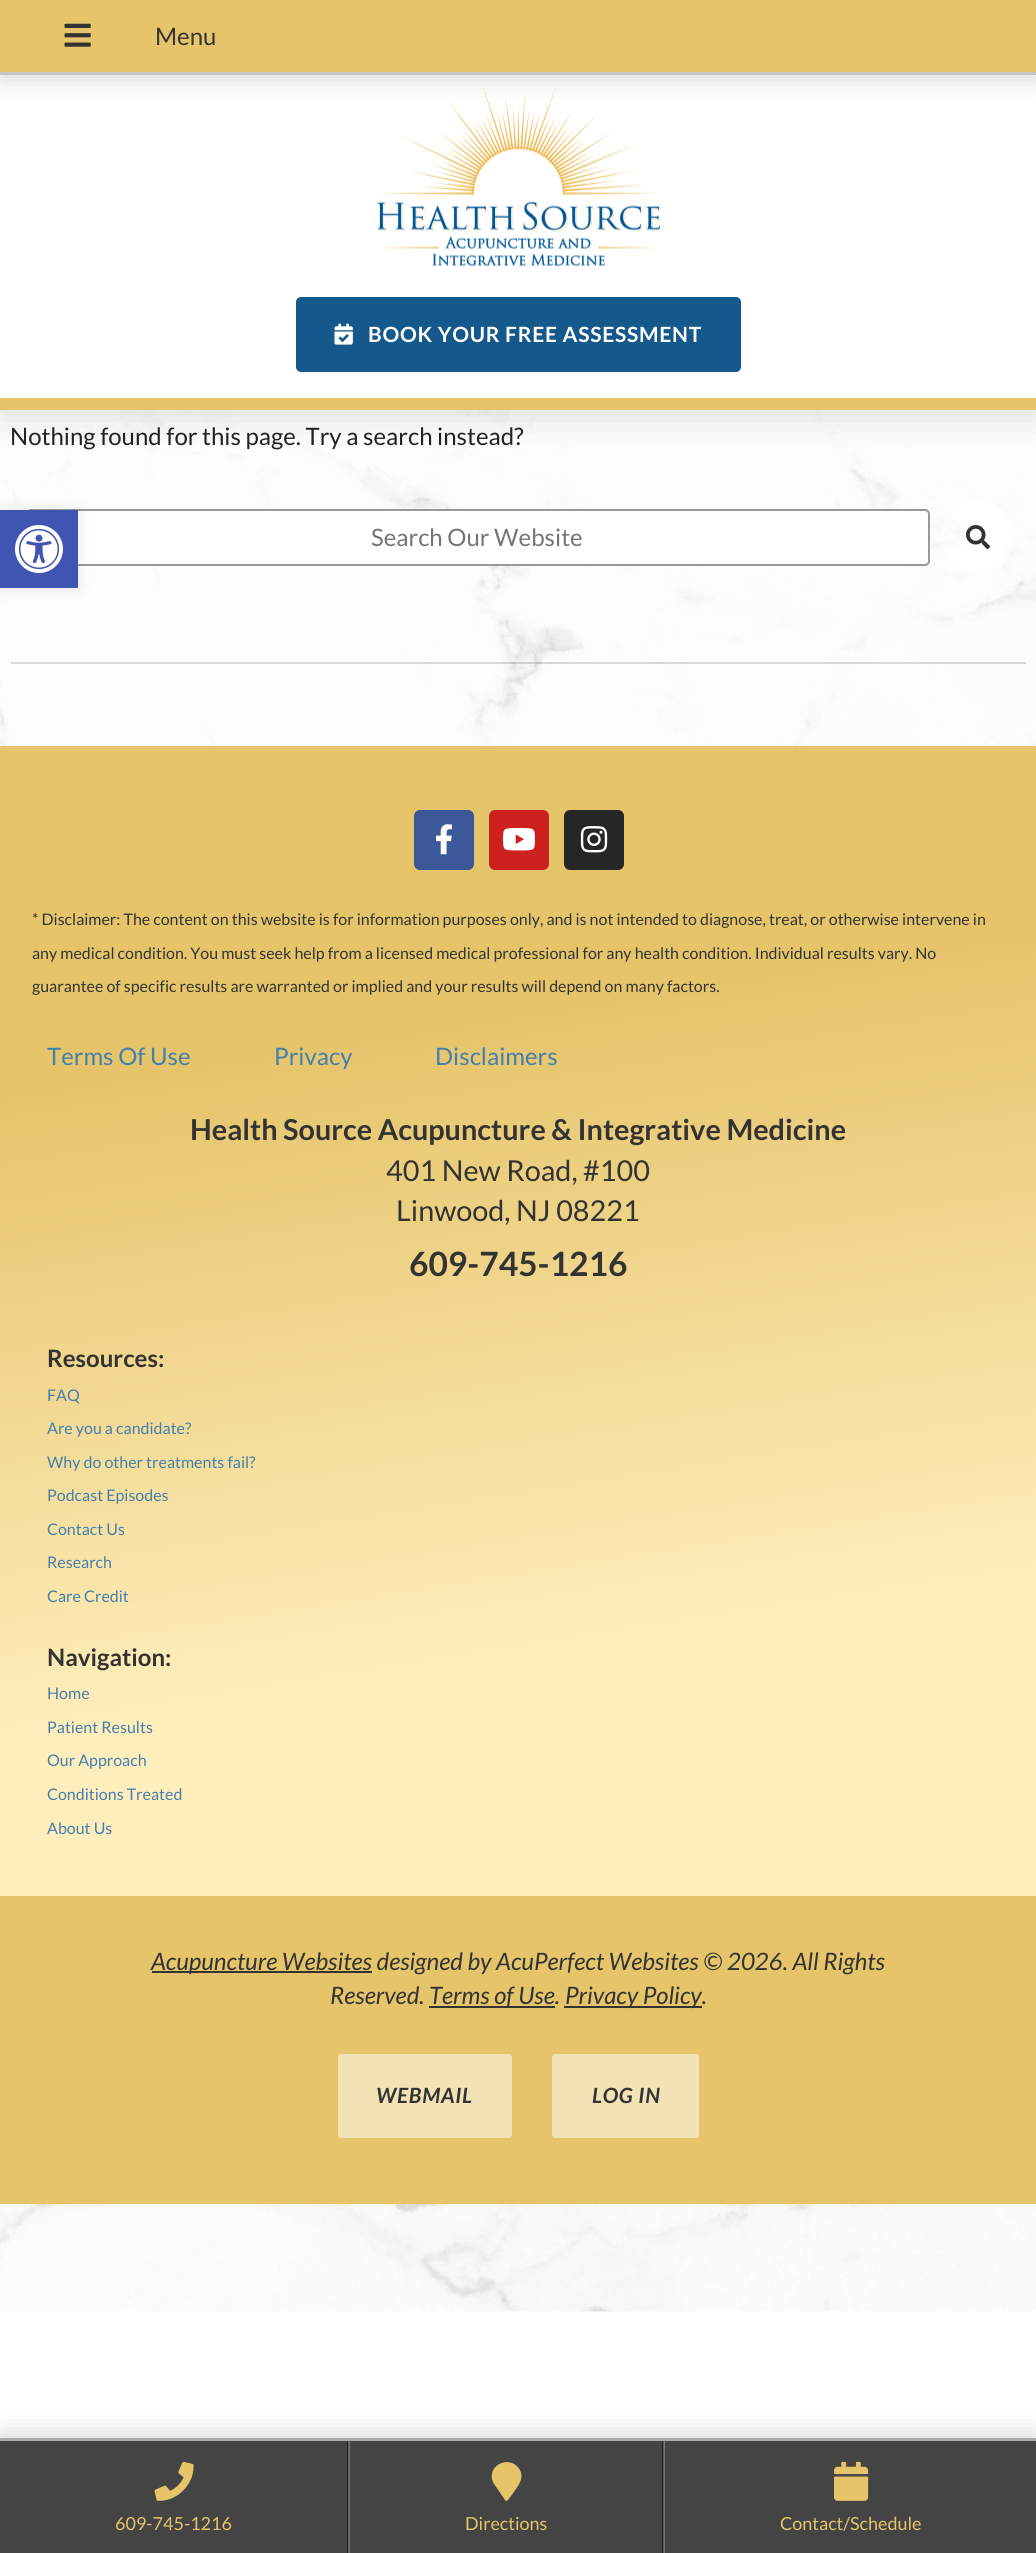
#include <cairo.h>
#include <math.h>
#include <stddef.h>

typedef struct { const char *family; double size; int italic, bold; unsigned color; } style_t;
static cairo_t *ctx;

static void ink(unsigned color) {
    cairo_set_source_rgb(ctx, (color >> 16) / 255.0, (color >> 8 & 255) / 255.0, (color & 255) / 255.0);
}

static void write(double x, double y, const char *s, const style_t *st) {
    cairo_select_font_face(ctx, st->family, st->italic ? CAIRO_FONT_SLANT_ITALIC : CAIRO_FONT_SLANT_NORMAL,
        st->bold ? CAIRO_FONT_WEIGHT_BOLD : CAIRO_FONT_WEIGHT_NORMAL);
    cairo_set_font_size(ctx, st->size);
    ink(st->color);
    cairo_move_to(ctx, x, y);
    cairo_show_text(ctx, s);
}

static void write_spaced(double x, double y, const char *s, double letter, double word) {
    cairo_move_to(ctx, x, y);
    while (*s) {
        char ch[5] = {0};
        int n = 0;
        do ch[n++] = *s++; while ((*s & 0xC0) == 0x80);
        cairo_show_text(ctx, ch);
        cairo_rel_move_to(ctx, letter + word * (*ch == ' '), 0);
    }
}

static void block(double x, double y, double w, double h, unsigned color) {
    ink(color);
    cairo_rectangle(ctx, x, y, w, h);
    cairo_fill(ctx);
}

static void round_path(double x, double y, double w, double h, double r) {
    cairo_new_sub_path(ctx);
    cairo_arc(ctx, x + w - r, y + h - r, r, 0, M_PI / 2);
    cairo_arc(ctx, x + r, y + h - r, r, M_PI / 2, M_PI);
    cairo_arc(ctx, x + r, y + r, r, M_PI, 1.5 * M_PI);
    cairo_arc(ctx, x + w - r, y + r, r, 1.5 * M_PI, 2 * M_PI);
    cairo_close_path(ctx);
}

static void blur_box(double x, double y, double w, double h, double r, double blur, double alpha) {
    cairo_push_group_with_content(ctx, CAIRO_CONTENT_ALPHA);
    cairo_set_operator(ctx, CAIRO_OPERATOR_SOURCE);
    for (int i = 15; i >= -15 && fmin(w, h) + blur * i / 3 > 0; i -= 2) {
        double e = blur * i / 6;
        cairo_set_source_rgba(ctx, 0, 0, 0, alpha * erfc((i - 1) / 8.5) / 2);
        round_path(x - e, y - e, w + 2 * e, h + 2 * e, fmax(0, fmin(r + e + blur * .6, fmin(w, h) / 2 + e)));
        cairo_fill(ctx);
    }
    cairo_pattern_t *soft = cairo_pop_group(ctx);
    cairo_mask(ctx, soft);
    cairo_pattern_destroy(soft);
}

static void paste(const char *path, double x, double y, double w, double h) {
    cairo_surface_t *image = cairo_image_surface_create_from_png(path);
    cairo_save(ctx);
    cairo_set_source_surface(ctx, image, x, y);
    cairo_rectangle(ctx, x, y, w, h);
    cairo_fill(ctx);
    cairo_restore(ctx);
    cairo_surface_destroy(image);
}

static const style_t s1 = {"Lato", 24, 0, 0, 0x333333};
static const style_t s2 = {"Lato", 24, 0, 0, 0x222222};
static const style_t s3 = {"Lato", 24, 0, 0, 0x757575};
static const style_t s4 = {"Lato", 16, 0, 0, 0x333333};
static const style_t s5 = {"Lato", 24, 0, 0, 0x4280af};
static const style_t s6 = {"Lato", 28.8, 0, 1, 0x333333};
static const style_t s7 = {"Lato", 28.8, 0, 0, 0x333333};
static const style_t s8 = {"Lato", 33.5, 0, 1, 0x333333};
static const style_t s9 = {"Lato", 24, 0, 1, 0x333333};
static const style_t s10 = {"Lato", 16, 0, 0, 0x4280af};
static const style_t s11 = {"Lato", 24, 1, 0, 0x333333};
static const style_t s12 = {"Lato", 18, 0, 0, 0xe5c46a};

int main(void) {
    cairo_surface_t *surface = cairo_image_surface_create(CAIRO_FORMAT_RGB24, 1036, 2553);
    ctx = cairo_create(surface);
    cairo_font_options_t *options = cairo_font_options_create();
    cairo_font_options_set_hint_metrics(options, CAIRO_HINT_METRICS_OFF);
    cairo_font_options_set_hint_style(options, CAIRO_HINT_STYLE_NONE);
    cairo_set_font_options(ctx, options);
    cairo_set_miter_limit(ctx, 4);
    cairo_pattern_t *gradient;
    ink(0xffffff);
    cairo_paint(ctx);
    paste("pic1.png", 0, 410, 1036, 1902);
    ink(0x000000);
    blur_box(0, 78, 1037, 335, 0, 19, 0.15);
    block(0, 75, 1036, 323, 0xffffff);
    paste("pic3.png", 376, 85, 286, 181);
    ink(0x000000);
    blur_box(0, 5, 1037, 75, 0, 12, 0.15);
    block(0, 0, 1036, 72, 0xe5c46a);
    block(0, 72, 1036, 3, 0xc6c6c6);
    paste("pic2.png", 64, 23, 27, 24);
    write(155, 45, "Menu", &s1);
    block(0, 398, 1036, 12, 0xe5c46a);
    ink(0x14588c);
    round_path(296, 297, 445, 75, 5);
    cairo_fill(ctx);
    paste("pic4.png", 334, 323, 19, 22);
    cairo_select_font_face(ctx, "Lato", CAIRO_FONT_SLANT_NORMAL, CAIRO_FONT_WEIGHT_BOLD);
    cairo_set_font_size(ctx, 21);
    ink(0xffffff);
    write_spaced(368, 342, "BOOK YOUR FREE ASSESSMENT", 0.75, 0);
    cairo_set_source_rgba(ctx, 0, 0, 0, 0.15);
    cairo_rectangle(ctx, 11, 662, 1015, 2);
    cairo_fill(ctx);
    write(10, 445, "Nothing found for this page. Try a search instead?", &s2);
    ink(0xffffff);
    round_path(27, 510, 902, 55, 4);
    cairo_fill_preserve(ctx);
    ink(0x999999);
    cairo_stroke(ctx);
    write(371, 546, "Search Our Website", &s3);
    cairo_set_source_rgba(ctx, 1, 1, 1, 0.5);
    cairo_new_path(ctx);
    cairo_arc(ctx, 978, 537, 36, 0, 2 * M_PI);
    cairo_fill(ctx);
    paste("pic5.png", 966, 525, 24, 24);
    block(0, 746, 1036, 1458, 0xe5c46a);
    gradient = cairo_pattern_create_linear(419, 703, 618, 1962);
    cairo_pattern_add_color_stop_rgba(gradient, 0.25, 0.898, 0.769, 0.416, 1);
    cairo_pattern_add_color_stop_rgba(gradient, 0.75, 1, 0.929, 0.733, 1);
    cairo_set_source(ctx, gradient);
    cairo_pattern_destroy(gradient);
    cairo_rectangle(ctx, 0, 948, 1036, 948);
    cairo_fill(ctx);
    ink(0x3b5998);
    round_path(414, 810, 60, 60, 6);
    cairo_fill(ctx);
    paste("pic6.png", 435, 824, 18, 31);
    ink(0xcd201f);
    round_path(489, 810, 60, 60, 6);
    cairo_fill(ctx);
    paste("pic7.png", 503, 828, 32, 23);
    ink(0x262626);
    round_path(564, 810, 60, 60, 6);
    cairo_fill(ctx);
    paste("pic8.png", 580, 826, 28, 27);
    write(32, 925, "* Disclaimer: The content on this website is for information purposes only, and is not intended to diagnose, treat, or otherwise intervene in", &s4);
    write(32, 959, "any medical condition. You must seek help from a licensed medical professional for any health condition. Individual results vary. No", &s4);
    write(32, 992, "guarantee of specific results are warranted or implied and your results will depend on many factors.", &s4);
    write(47, 1065, "Terms Of Use", &s5);
    write(274, 1065, "Privacy", &s5);
    write(435, 1065, "Disclaimers", &s5);
    write(190, 1140, "Health Source Acupuncture & Integrative Medicine", &s6);
    write(386, 1181, "401 New Road, #100", &s7);
    write(396, 1221, "Linwood, NJ 08221", &s7);
    write(409, 1276, "609-745-1216", &s8);
    write(47, 1367, "Resources:", &s9);
    write(47, 1401, "FAQ", &s10);
    write(47, 1434, "Are you a candidate?", &s10);
    write(47, 1468, "Why do other treatments fail?", &s10);
    write(47, 1501, "Podcast Episodes", &s10);
    write(47, 1535, "Contact Us", &s10);
    write(47, 1568, "Research", &s10);
    write(47, 1602, "Care Credit", &s10);
    write(47, 1666, "Navigation:", &s9);
    write(47, 1699, "Home", &s10);
    write(47, 1733, "Patient Results", &s10);
    write(47, 1766, "Our Approach", &s10);
    write(47, 1800, "Conditions Treated", &s10);
    write(47, 1834, "About Us", &s10);
    block(152, 1971, 220, 2, 0x333333);
    write(151, 1970, "Acupuncture Websites designed by AcuPerfect Websites © 2026. All Rights", &s11);
    write(330, 2004, "Reserved.", &s11);
    block(429, 2006, 126, 2, 0x333333);
    write(429, 2004, "Terms of Use.", &s11);
    block(564, 2006, 138, 2, 0x333333);
    write(565, 2004, "Privacy Policy.", &s11);
    ink(0xf2e2b5);
    round_path(338, 2054, 174, 84, 3);
    cairo_fill(ctx);
    cairo_select_font_face(ctx, "Lato", CAIRO_FONT_SLANT_ITALIC, CAIRO_FONT_WEIGHT_BOLD);
    cairo_set_font_size(ctx, 21);
    ink(0x333333);
    write_spaced(376, 2103, "WEBMAIL", 0.75, 0);
    ink(0xf2e2b5);
    round_path(552, 2054, 147, 84, 3);
    cairo_fill(ctx);
    ink(0x333333);
    write_spaced(592, 2103, "LOG IN", 0.75, 0);
    ink(0x000000);
    blur_box(0, 510, 78, 78, 0, 7.5, 0.1);
    block(0, 510, 78, 78, 0x4054b2);
    paste("pic9.png", 15, 525, 48, 48);
    ink(0x000000);
    blur_box(0, 2433, 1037, 116, 0, 12, 0.15);
    block(0, 2441, 1036, 112, 0x444444);
    block(664, 2441, 1, 112, 0x767676);
    block(349, 2441, 1, 112, 0x767676);
    block(0, 2438, 1036, 3, 0xaaaaaa);
    block(347, 2441, 1, 112, 0x222222);
    block(348, 2441, 1, 112, 0x5e5e5e);
    paste("pic10.png", 154, 2461, 40, 40);
    write(115, 2530, "609-745-1216", &s12);
    block(662, 2441, 1, 112, 0x222222);
    block(663, 2441, 1, 112, 0x5e5e5e);
    ink(0xe5c46a);
    cairo_new_path(ctx);
    cairo_move_to(ctx, 505, 2500);
    cairo_line_to(ctx, 499, 2491);
    cairo_curve_to(ctx, 496.5, 2487.5, 493, 2483.5, 492, 2479);
    cairo_curve_to(ctx, 489, 2464, 510, 2455.5, 519, 2468.5);
    cairo_curve_to(ctx, 525.5, 2478, 517.5, 2486.5, 512.5, 2494);
    cairo_line_to(ctx, 507.5, 2500.5);
    cairo_curve_to(ctx, 506.5, 2501, 505.5, 2501, 505, 2500);
    cairo_close_path(ctx);
    cairo_fill(ctx);
    write(465, 2530, "Directions", &s12);
    paste("pic11.png", 834, 2461, 35, 40);
    write(780, 2530, "Contact/Schedule", &s12);
    cairo_surface_write_to_png(surface, "screenshot.png");
    cairo_font_options_destroy(options);
    cairo_destroy(ctx);
    cairo_surface_destroy(surface);
    return 0;
}
